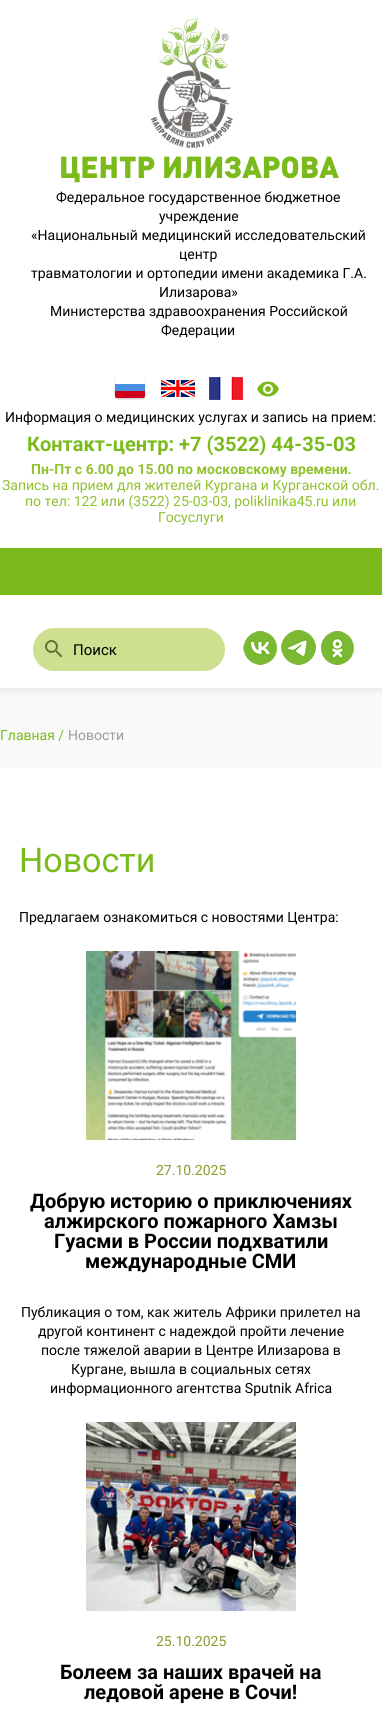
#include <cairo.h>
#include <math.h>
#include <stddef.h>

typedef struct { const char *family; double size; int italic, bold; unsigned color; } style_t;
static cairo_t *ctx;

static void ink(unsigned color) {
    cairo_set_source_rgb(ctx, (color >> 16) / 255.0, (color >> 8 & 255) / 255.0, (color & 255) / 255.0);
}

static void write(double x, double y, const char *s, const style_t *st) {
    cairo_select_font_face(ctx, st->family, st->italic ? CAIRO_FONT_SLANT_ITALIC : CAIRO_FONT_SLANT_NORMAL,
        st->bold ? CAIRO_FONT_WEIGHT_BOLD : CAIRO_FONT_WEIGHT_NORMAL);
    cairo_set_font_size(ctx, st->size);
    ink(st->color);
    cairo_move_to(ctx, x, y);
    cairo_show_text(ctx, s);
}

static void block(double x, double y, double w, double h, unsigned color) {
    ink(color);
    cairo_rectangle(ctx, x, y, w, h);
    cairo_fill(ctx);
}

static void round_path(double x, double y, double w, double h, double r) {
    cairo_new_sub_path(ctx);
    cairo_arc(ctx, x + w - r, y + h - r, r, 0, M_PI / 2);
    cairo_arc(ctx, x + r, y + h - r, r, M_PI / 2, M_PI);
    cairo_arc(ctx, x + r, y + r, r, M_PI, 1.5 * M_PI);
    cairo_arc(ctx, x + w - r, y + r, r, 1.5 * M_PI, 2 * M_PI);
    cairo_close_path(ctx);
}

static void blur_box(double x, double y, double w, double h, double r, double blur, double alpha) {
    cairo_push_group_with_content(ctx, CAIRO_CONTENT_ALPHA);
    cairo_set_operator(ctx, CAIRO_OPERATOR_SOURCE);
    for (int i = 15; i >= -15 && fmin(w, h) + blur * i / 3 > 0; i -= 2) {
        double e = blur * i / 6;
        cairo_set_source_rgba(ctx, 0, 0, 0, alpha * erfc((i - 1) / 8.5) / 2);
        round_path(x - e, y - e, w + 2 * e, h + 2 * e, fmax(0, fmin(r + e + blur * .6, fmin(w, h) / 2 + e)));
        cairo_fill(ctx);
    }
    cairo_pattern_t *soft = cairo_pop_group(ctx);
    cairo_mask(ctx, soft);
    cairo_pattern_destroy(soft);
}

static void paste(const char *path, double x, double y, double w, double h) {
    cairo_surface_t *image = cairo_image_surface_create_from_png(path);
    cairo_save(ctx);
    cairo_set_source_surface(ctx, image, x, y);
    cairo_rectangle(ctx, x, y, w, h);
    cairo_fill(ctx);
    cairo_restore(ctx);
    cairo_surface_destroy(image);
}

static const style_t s1 = {"DIN Black", 30, 0, 0, 0x7abb1b};
static const style_t s2 = {"Roboto", 14, 0, 0, 0x000000};
static const style_t s3 = {"Roboto", 20, 0, 1, 0x7abb1b};
static const style_t s4 = {"Roboto", 14, 0, 1, 0x90c12e};
static const style_t s5 = {"Roboto", 14, 0, 0, 0x90c12e};
static const style_t s6 = {"Roboto", 15, 0, 0, 0x000000};
static const style_t s7 = {"Roboto", 14, 0, 0, 0x7abb1b};
static const style_t s8 = {"Roboto", 14, 0, 0, 0x9b9b9b};
static const style_t s9 = {"Roboto", 34, 0, 0, 0x7abb1b};
static const style_t s10 = {"Roboto", 14, 0, 0, 0x84a02b};
static const style_t s11 = {"Roboto", 20, 0, 1, 0x000000};

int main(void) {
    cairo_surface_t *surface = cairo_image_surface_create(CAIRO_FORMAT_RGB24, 382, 1722);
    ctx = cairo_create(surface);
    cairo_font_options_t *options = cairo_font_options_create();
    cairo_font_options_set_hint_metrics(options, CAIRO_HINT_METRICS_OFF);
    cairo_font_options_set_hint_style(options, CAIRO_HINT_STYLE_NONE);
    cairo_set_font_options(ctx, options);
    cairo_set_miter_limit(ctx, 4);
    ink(0xf9f9f9);
    cairo_paint(ctx);
    ink(0x513e88);
    blur_box(0, 550, 382, 140, 0, 2, 0.06);
    blur_box(0, 549, 382, 140, 0, 5, 0.08);
    block(0, 0, 382, 548, 0xffffff);
    paste("pic1.png", 150, 17, 83, 131);
    write(59, 178, "ЦЕНТР ИЛИЗАРОВА", &s1);
    write(56, 202, "Федеральное государственное бюджетное", &s2);
    write(159, 221, "учреждение", &s2);
    write(31, 240, "«Национальный медицинский исследовательский", &s2);
    write(179, 259, "центр", &s2);
    write(31, 278, "травматологии и ортопедии имени академика Г.А.", &s2);
    write(159, 297, "Илизарова»", &s2);
    write(50, 316, "Министерства здравоохранения Российской", &s2);
    write(161, 335, "Федерации", &s2);
    paste("pic2.png", 114, 377, 32, 23);
    paste("pic3.png", 161, 380, 34, 17);
    paste("pic4.png", 209, 377, 34, 23);
    paste("pic5.png", 257, 381, 22, 16);
    write(5, 422, "Информация о медицинских услугах и запись на прием:", &s2);
    write(27, 451, "Контакт-центр: +7 (3522) 44-35-03", &s3);
    write(31, 474, "Пн-Пт с 6.00 до 15.00 по московскому времени.", &s4);
    write(2, 490, "Запись на прием для жителей Кургана и Курганской обл.", &s5);
    write(25, 506, "по тел: 122 или (3522) 25-03-03, poliklinika45.ru или", &s5);
    write(158, 522, "Госуслуги", &s5);
    block(0, 595, 382, 93, 0xffffff);
    block(0, 548, 382, 47, 0x7abb1b);
    ink(0xcedf90);
    round_path(33, 628, 192, 43, 21.5);
    cairo_fill(ctx);
    paste("pic6.png", 45, 640, 18, 18);
    write(73, 655, "Поиск", &s6);
    paste("pic7.png", 243, 631, 34, 34);
    paste("pic8.png", 281, 630, 35, 35);
    paste("pic9.png", 320, 631, 34, 34);
    write(0, 740, "Главная /", &s7);
    write(68, 740, "Новости", &s8);
    block(0, 768, 382, 954, 0xffffff);
    write(19, 872, "Новости", &s9);
    write(19, 922, "Предлагаем ознакомиться с новостями Центра:", &s2);
    paste("pic10.png", 86, 951, 210, 189);
    write(156, 1175, "27.10.2025", &s10);
    write(30, 1208, "Добрую историю о приключениях", &s11);
    write(44, 1228, "алжирского пожарного Хамзы", &s11);
    write(54, 1248, "Гуасми в России подхватили", &s11);
    write(85, 1268, "международные СМИ", &s11);
    write(21, 1317, "Публикация о том, как житель Африки прилетел на", &s2);
    write(38, 1336, "другой континент с надеждой пройти лечение", &s2);
    write(41, 1355, "после тяжелой аварии в Центре Илизарова в", &s2);
    write(71, 1374, "Кургане, вышла в социальных сетях", &s2);
    write(50, 1393, "информационного агентства Sputnik Africa", &s2);
    paste("pic11.png", 86, 1422, 210, 189);
    write(156, 1646, "25.10.2025", &s10);
    write(60, 1679, "Болеем за наших врачей на", &s11);
    write(84, 1699, "ледовой арене в Сочи!", &s11);
    cairo_surface_write_to_png(surface, "screenshot.png");
    cairo_font_options_destroy(options);
    cairo_destroy(ctx);
    cairo_surface_destroy(surface);
    return 0;
}
